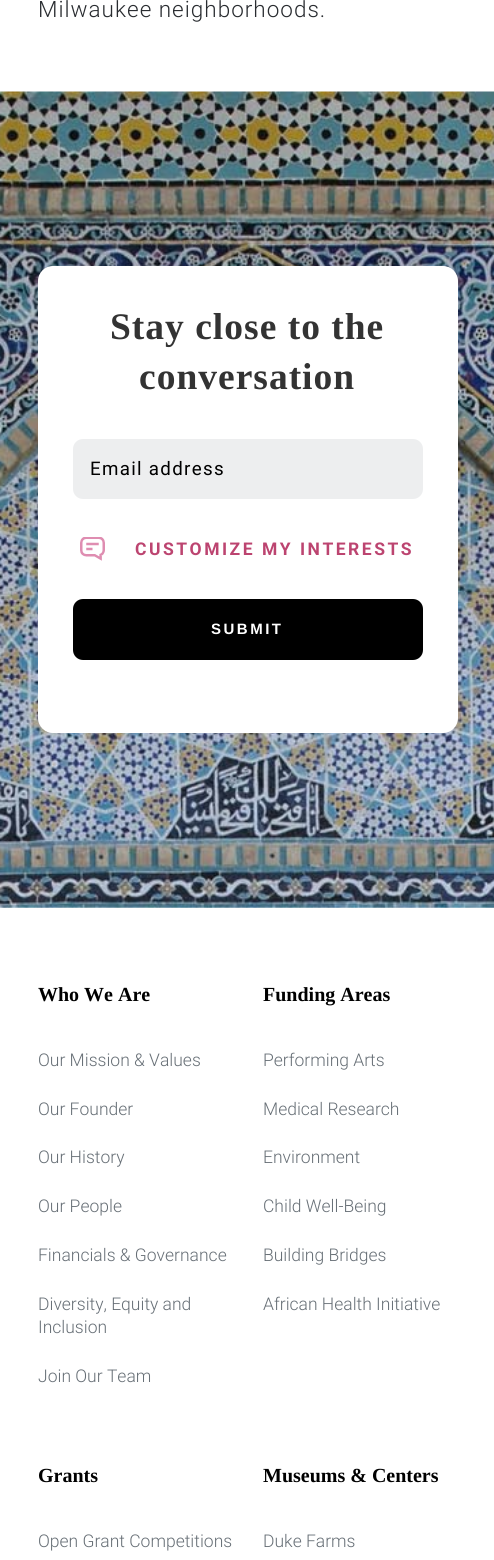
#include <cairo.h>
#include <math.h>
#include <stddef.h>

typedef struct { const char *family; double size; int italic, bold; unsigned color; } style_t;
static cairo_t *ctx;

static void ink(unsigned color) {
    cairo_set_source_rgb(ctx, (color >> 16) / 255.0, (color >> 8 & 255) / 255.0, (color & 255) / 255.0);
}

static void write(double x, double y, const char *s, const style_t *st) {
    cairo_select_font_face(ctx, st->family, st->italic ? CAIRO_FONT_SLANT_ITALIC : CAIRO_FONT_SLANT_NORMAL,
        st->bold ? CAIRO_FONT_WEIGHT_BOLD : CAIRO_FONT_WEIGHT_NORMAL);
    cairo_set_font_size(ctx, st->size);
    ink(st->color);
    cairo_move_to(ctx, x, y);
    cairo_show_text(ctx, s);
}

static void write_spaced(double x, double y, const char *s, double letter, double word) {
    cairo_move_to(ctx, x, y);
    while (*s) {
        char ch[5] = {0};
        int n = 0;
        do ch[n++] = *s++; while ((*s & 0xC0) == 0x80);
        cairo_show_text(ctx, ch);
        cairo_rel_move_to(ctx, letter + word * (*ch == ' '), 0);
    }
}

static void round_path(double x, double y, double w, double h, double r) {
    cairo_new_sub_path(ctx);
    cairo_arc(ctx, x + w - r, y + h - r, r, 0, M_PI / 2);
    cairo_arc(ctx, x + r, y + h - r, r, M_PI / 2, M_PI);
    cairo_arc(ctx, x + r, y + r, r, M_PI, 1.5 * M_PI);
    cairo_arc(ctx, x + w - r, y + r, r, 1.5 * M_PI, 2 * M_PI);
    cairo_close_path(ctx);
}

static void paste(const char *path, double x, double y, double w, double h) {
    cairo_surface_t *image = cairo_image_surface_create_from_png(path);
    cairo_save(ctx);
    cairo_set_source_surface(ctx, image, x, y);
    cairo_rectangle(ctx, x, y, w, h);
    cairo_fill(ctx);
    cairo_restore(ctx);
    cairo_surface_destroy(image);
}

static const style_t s1 = {"Liberation Serif", 20, 0, 1, 0x000000};
static const style_t s2 = {"Roboto Light", 17.5, 0, 0, 0x676f76};

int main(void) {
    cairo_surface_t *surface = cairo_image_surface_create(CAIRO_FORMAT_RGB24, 494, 1560);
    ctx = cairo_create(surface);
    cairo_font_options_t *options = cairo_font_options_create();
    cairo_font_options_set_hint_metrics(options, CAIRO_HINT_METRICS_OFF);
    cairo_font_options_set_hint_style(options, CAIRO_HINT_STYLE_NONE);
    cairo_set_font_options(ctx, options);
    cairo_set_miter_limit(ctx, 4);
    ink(0xffffff);
    cairo_paint(ctx);
    cairo_select_font_face(ctx, "Roboto Light", CAIRO_FONT_SLANT_NORMAL, CAIRO_FONT_WEIGHT_NORMAL);
    cairo_set_font_size(ctx, 22.5);
    ink(0x292c30);
    write_spaced(38, 17, "Milwaukee neighborhoods.", 1, 0);
    paste("pic1.png", 0, 91, 494, 817);
    ink(0xffffff);
    round_path(38, 266, 420, 467, 15);
    cairo_fill(ctx);
    cairo_select_font_face(ctx, "Liberation Serif", CAIRO_FONT_SLANT_NORMAL, CAIRO_FONT_WEIGHT_BOLD);
    cairo_set_font_size(ctx, 37.5);
    ink(0x333333);
    write_spaced(110, 339, "Stay close to the", 1, 0);
    write_spaced(139, 389, "conversation", 1, 0);
    ink(0xedeeef);
    round_path(73, 439, 350, 60, 10);
    cairo_fill(ctx);
    cairo_select_font_face(ctx, "Roboto", CAIRO_FONT_SLANT_NORMAL, CAIRO_FONT_WEIGHT_NORMAL);
    cairo_set_font_size(ctx, 18.75);
    ink(0x000000);
    write_spaced(90, 475, "Email address", 1.3, 0);
    paste("pic2.png", 80, 537, 25, 24);
    cairo_select_font_face(ctx, "Roboto", CAIRO_FONT_SLANT_NORMAL, CAIRO_FONT_WEIGHT_BOLD);
    cairo_set_font_size(ctx, 17.5);
    ink(0xbc4470);
    write_spaced(135, 555, "CUSTOMIZE MY INTERESTS", 2.5, 0);
    ink(0x000000);
    round_path(73, 599, 350, 61, 10);
    cairo_fill(ctx);
    cairo_select_font_face(ctx, "Liberation Sans", CAIRO_FONT_SLANT_NORMAL, CAIRO_FONT_WEIGHT_BOLD);
    cairo_set_font_size(ctx, 15);
    ink(0xffffff);
    write_spaced(211, 634, "SUBMIT", 2.5, 0);
    write(38, 1001, "Who We Are", &s1);
    write(38, 1066, "Our Mission & Values", &s2);
    write(38, 1115, "Our Founder", &s2);
    write(38, 1163, "Our History", &s2);
    write(38, 1212, "Our People", &s2);
    write(38, 1261, "Financials & Governance", &s2);
    write(38, 1310, "Diversity, Equity and", &s2);
    write(38, 1333, "Inclusion", &s2);
    write(38, 1382, "Join Our Team", &s2);
    write(263, 1001, "Funding Areas", &s1);
    write(263, 1066, "Performing Arts", &s2);
    write(263, 1115, "Medical Research", &s2);
    write(263, 1163, "Environment", &s2);
    write(263, 1212, "Child Well-Being", &s2);
    write(263, 1261, "Building Bridges", &s2);
    write(263, 1310, "African Health Initiative", &s2);
    write(38, 1482, "Grants", &s1);
    write(38, 1547, "Open Grant Competitions", &s2);
    write(263, 1482, "Museums & Centers", &s1);
    write(263, 1547, "Duke Farms", &s2);
    cairo_surface_write_to_png(surface, "screenshot.png");
    cairo_font_options_destroy(options);
    cairo_destroy(ctx);
    cairo_surface_destroy(surface);
    return 0;
}
